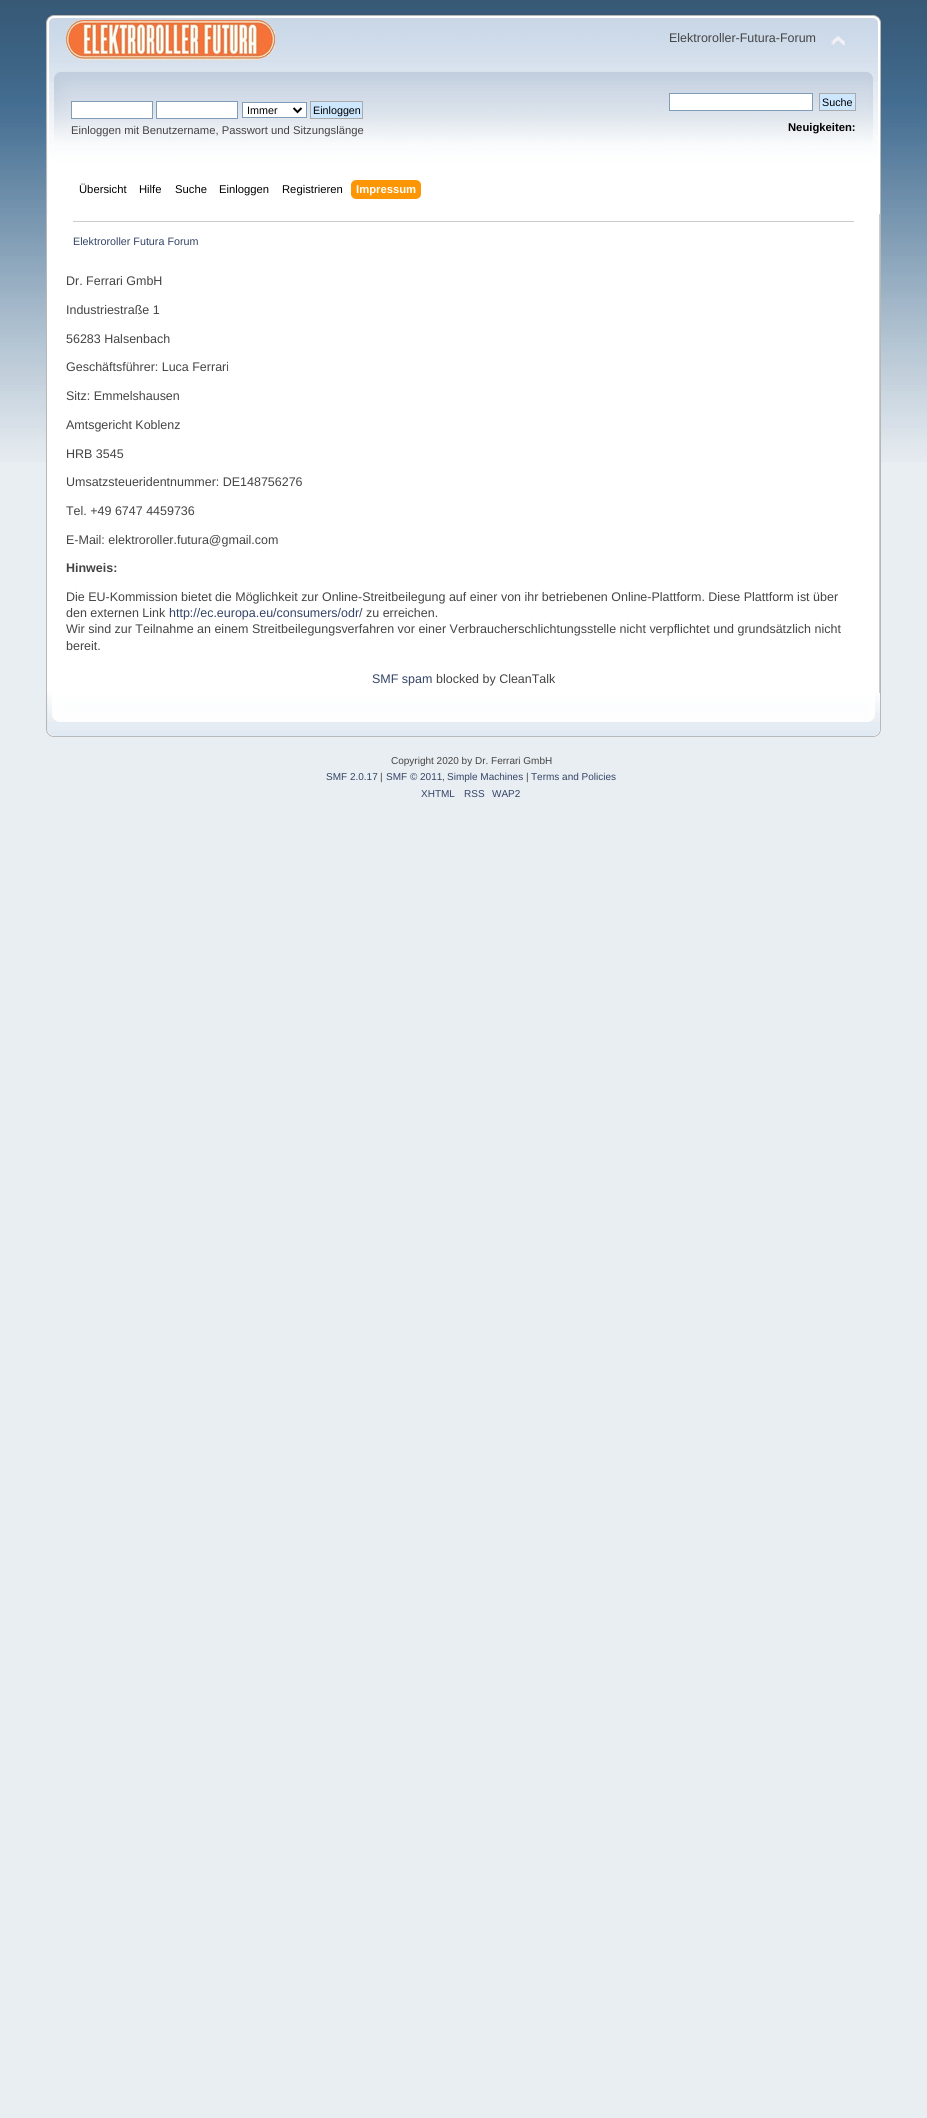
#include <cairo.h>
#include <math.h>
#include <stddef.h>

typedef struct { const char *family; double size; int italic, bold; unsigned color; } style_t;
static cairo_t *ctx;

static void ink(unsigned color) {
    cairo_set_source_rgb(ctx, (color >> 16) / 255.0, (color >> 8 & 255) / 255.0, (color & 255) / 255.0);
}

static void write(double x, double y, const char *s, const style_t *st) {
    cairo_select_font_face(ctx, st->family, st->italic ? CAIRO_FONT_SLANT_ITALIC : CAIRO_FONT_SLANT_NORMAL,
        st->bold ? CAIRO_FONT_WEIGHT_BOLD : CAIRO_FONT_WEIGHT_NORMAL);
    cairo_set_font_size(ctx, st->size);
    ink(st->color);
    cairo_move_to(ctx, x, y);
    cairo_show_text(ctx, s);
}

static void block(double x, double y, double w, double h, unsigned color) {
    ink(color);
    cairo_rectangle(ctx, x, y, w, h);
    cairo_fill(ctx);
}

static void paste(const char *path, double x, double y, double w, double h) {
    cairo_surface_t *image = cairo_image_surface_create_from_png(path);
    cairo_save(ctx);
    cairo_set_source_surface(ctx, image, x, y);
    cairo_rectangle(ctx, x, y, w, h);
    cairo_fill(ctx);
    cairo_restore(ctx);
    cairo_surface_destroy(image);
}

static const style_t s1 = {"Liberation Sans", 12.48, 0, 0, 0x444444};
static const style_t s2 = {"Liberation Sans", 10.75, 0, 0, 0x000000};
static const style_t s3 = {"Liberation Sans", 11.25, 0, 0, 0x444444};
static const style_t s4 = {"Liberation Sans", 11.25, 0, 1, 0x000000};
static const style_t s5 = {"Liberation Sans", 11.25, 0, 0, 0x000000};
static const style_t s6 = {"Liberation Sans", 11.25, 0, 1, 0xffffff};
static const style_t s7 = {"Liberation Sans", 10.75, 0, 0, 0x334466};
static const style_t s8 = {"Liberation Sans", 12.48, 0, 1, 0x444444};
static const style_t s9 = {"Liberation Sans", 12.48, 0, 0, 0x334466};
static const style_t s10 = {"Liberation Sans", 10, 0, 0, 0x444444};
static const style_t s11 = {"Liberation Sans", 10, 0, 0, 0x334466};

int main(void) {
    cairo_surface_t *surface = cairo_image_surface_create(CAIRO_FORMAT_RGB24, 927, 2118);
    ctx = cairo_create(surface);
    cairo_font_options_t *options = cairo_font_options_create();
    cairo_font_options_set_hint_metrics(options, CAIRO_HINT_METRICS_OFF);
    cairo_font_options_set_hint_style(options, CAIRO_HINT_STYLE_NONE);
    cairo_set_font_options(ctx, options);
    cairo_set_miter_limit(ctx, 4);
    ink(0xe9eef2);
    cairo_paint(ctx);
    paste("pic1.png", 0, 0, 927, 462);
    paste("pic2.png", 46, 15, 822, 199);
    paste("pic3.png", 868, 15, 13, 199);
    paste("pic4.png", 66, 20, 209, 40);
    write(669, 42, "Elektroroller-Futura-Forum", &s1);
    paste("pic5.png", 831, 35, 15, 12);
    ink(0xffffff);
    cairo_rectangle(ctx, 71.5, 101.5, 81, 17);
    cairo_fill_preserve(ctx);
    ink(0x7f9db9);
    cairo_set_line_width(ctx, 1);
    cairo_stroke(ctx);
    ink(0xffffff);
    cairo_rectangle(ctx, 156.5, 101.5, 81, 17);
    cairo_fill_preserve(ctx);
    ink(0x7f9db9);
    cairo_stroke(ctx);
    ink(0xffffff);
    cairo_rectangle(ctx, 242.5, 102.5, 64, 15);
    cairo_fill_preserve(ctx);
    ink(0x7f9db9);
    cairo_stroke(ctx);
    cairo_new_path(ctx);
    cairo_move_to(ctx, 293.5, 108);
    cairo_line_to(ctx, 297.5, 112);
    cairo_line_to(ctx, 301.5, 108);
    ink(0x000000);
    cairo_set_line_width(ctx, 2);
    cairo_stroke(ctx);
    write(247, 114, "Immer", &s2);
    ink(0xcde7ff);
    cairo_rectangle(ctx, 310.5, 101.5, 52, 17);
    cairo_fill_preserve(ctx);
    ink(0xaaaaaa);
    cairo_set_line_width(ctx, 1);
    cairo_stroke(ctx);
    write(313, 114, "Einloggen", &s2);
    write(71, 134, "Einloggen mit Benutzername, Passwort und Sitzungslänge", &s3);
    ink(0xffffff);
    cairo_rectangle(ctx, 669.5, 93.5, 143, 17);
    cairo_fill_preserve(ctx);
    ink(0x7f9db9);
    cairo_stroke(ctx);
    ink(0xcde7ff);
    cairo_rectangle(ctx, 819.5, 93.5, 36, 17);
    cairo_fill_preserve(ctx);
    ink(0xaaaaaa);
    cairo_stroke(ctx);
    write(822, 106, "Suche", &s2);
    write(788, 131, "Neuigkeiten:", &s4);
    write(79, 193, "Übersicht", &s5);
    write(139, 193, "Hilfe", &s5);
    write(175, 193, "Suche", &s5);
    write(219, 193, "Einloggen", &s5);
    write(282, 193, "Registrieren", &s5);
    paste("pic6.png", 356, 180, 65, 19);
    paste("pic7.png", 351, 180, 5, 19);
    write(356, 193, "Impressum", &s6);
    block(47, 214, 832, 479, 0xffffff);
    block(46, 214, 1, 479, 0xb7b7b7);
    paste("pic8.png", 879, 214, 2, 479);
    block(73, 221, 781, 1, 0xcccccc);
    write(73, 245, "Elektroroller Futura Forum", &s7);
    write(66, 285, "Dr. Ferrari GmbH", &s1);
    write(66, 314, "Industriestraße 1", &s1);
    write(66, 343, "56283 Halsenbach", &s1);
    write(66, 371, "Geschäftsführer: Luca Ferrari", &s1);
    write(66, 400, "Sitz: Emmelshausen", &s1);
    write(66, 429, "Amtsgericht Koblenz", &s1);
    write(66, 458, "HRB 3545", &s1);
    write(66, 486, "Umsatzsteueridentnummer: DE148756276", &s1);
    write(66, 515, "Tel. +49 6747 4459736", &s1);
    write(66, 544, "E-Mail: elektroroller.futura@gmail.com", &s1);
    write(66, 572, "Hinweis:", &s8);
    write(66, 601, "Die EU-Kommission bietet die Möglichkeit zur Online-Streitbeilegung auf einer von ihr betriebenen Online-Plattform. Diese Plattform ist über", &s1);
    write(66, 617, "den externen Link", &s1);
    write(169, 617, "http://ec.europa.eu/consumers/odr/", &s9);
    write(366, 617, "zu erreichen.", &s1);
    write(66, 633, "Wir sind zur Teilnahme an einem Streitbeilegungsverfahren vor einer Verbraucherschlichtungsstelle nicht verpflichtet und grundsätzlich nicht", &s1);
    write(66, 650, "bereit.", &s1);
    write(372, 683, "SMF spam", &s9);
    write(436, 683, "blocked by CleanTalk", &s1);
    paste("pic9.png", 46, 693, 823, 44);
    paste("pic10.png", 869, 693, 12, 44);
    write(391, 764, "Copyright 2020 by Dr. Ferrari GmbH", &s10);
    write(326, 780, "SMF 2.0.17", &s11);
    write(380, 780, "|", &s10);
    write(386, 780, "SMF © 2011", &s11);
    write(442, 780, ",", &s10);
    write(447, 780, "Simple Machines", &s11);
    write(526, 780, "|", &s10);
    write(531, 780, "Terms and Policies", &s11);
    write(421, 797, "XHTML", &s11);
    write(464, 797, "RSS", &s11);
    write(492, 797, "WAP2", &s11);
    cairo_surface_write_to_png(surface, "screenshot.png");
    cairo_font_options_destroy(options);
    cairo_destroy(ctx);
    cairo_surface_destroy(surface);
    return 0;
}
